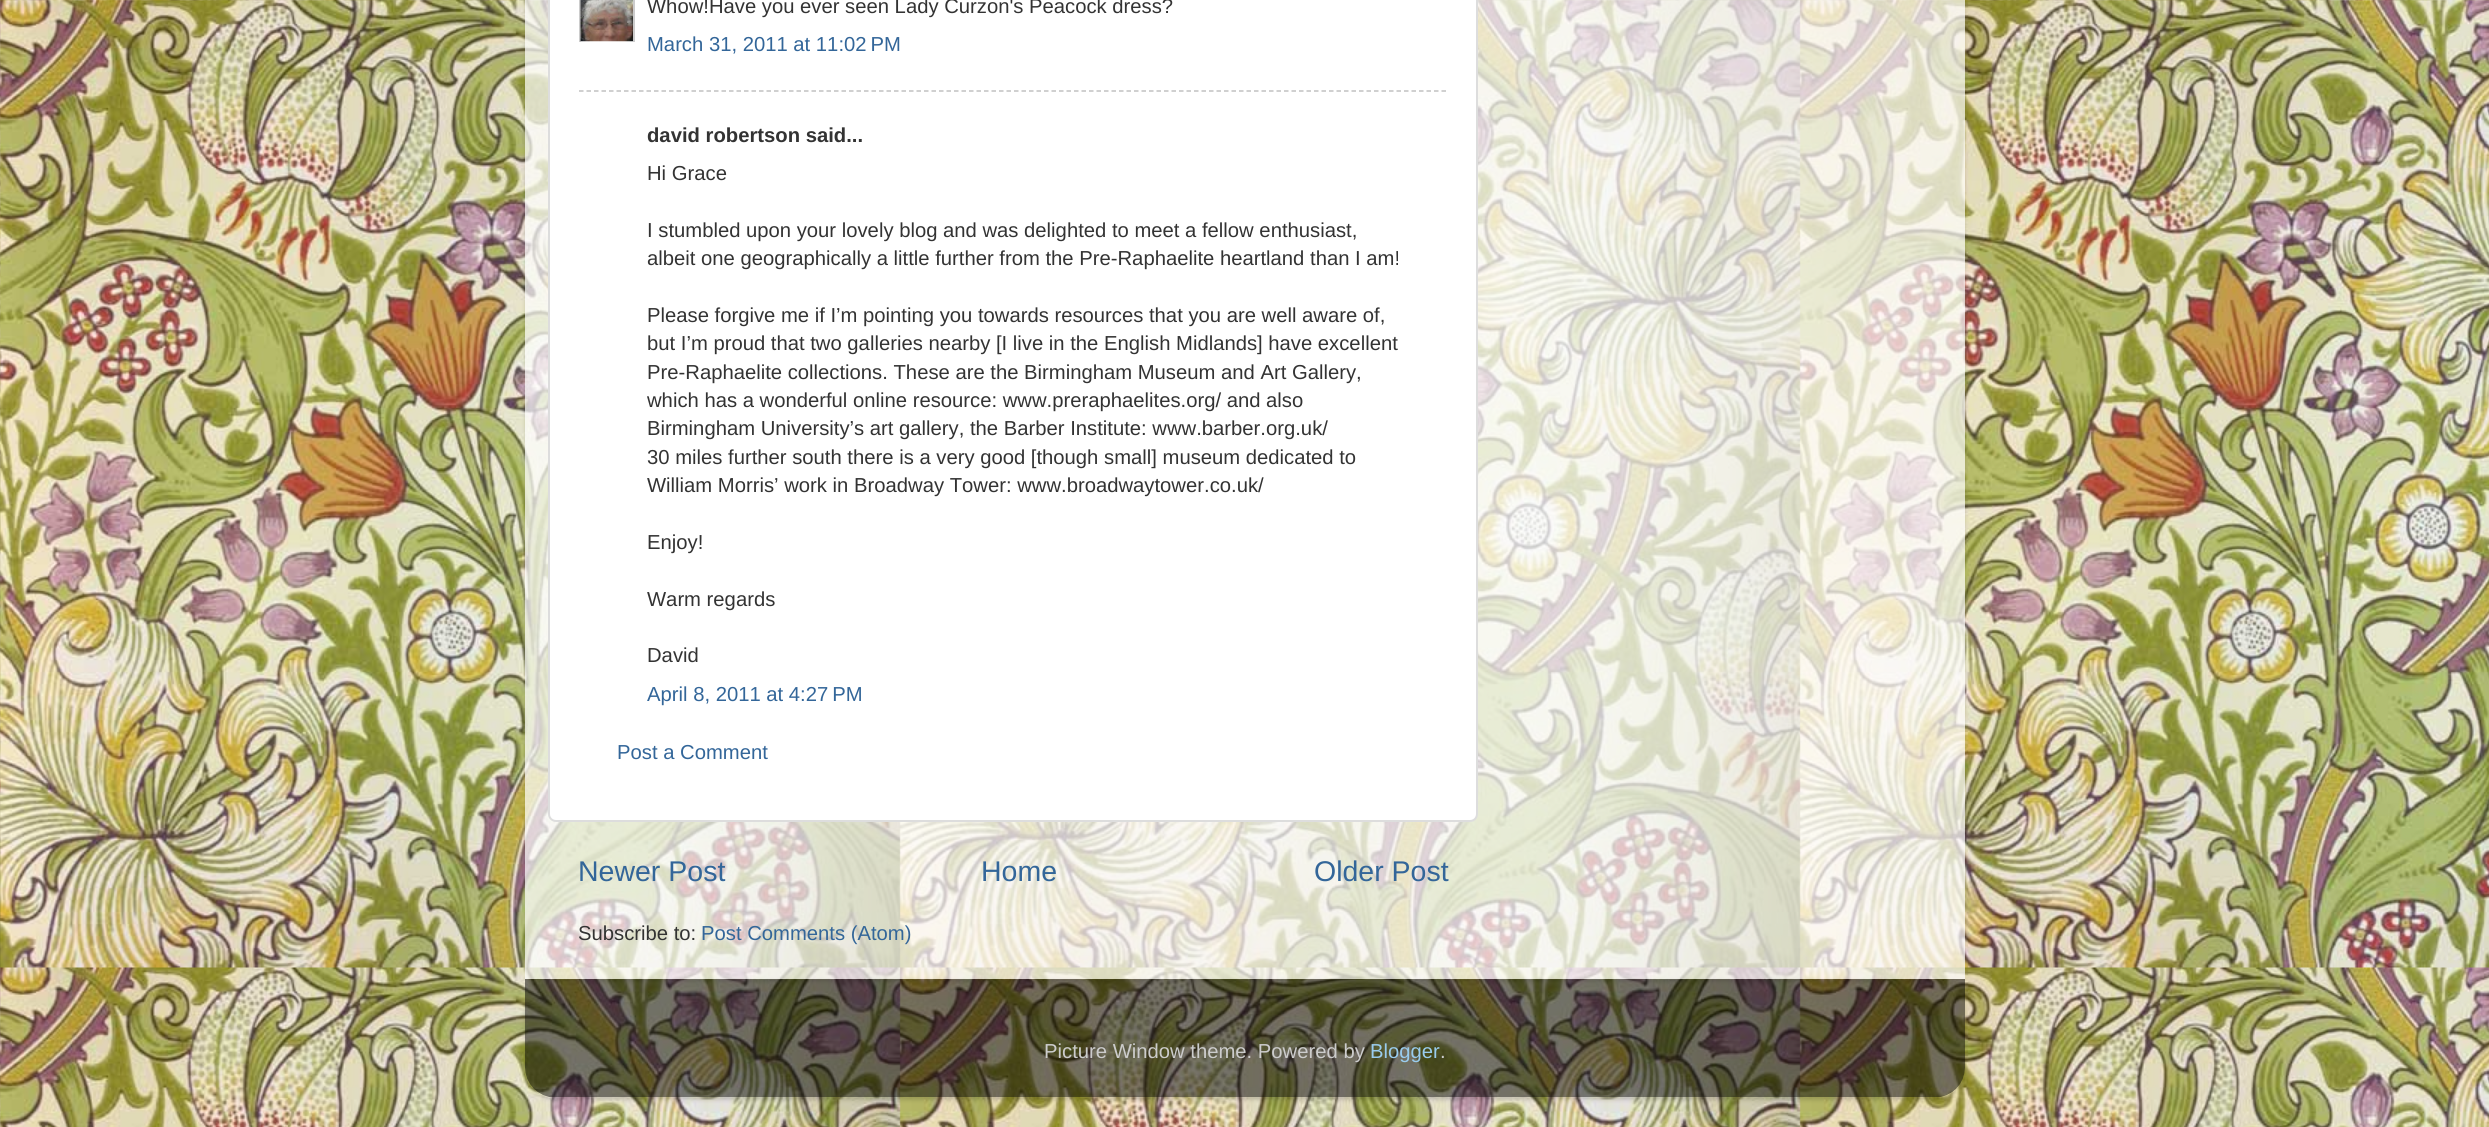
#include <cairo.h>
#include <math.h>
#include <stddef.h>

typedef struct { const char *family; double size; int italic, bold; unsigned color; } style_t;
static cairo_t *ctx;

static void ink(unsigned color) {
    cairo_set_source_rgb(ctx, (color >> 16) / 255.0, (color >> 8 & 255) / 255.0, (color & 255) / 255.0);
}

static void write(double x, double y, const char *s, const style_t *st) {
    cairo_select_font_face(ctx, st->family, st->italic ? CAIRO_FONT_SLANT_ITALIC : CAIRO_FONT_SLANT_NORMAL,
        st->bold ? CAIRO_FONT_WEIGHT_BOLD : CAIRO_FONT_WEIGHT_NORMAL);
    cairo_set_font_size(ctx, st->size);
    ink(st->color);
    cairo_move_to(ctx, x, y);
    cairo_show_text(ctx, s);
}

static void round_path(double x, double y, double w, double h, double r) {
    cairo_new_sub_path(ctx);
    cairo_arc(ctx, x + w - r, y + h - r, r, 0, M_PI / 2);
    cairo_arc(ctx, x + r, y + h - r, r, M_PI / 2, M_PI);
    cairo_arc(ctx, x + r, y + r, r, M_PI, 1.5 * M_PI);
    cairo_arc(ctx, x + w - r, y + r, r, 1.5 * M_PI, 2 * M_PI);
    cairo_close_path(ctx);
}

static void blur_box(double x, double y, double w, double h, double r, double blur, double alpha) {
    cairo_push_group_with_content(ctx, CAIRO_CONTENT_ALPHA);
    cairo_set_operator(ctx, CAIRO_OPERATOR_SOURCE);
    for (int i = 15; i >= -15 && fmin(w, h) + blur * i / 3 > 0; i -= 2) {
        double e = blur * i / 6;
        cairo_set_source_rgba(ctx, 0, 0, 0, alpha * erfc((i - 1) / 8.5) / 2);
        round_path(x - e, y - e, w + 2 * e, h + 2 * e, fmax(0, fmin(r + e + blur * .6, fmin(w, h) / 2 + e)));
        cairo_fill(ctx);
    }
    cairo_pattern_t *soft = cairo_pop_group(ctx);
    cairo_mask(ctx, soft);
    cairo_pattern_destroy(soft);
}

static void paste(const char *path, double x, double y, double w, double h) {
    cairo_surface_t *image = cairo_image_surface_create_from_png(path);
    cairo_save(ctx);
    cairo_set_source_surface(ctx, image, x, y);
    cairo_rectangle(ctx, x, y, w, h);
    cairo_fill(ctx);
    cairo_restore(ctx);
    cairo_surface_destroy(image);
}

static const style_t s1 = {"Liberation Sans", 20.25, 0, 0, 0x333333};
static const style_t s2 = {"Liberation Sans", 20.25, 0, 0, 0x336699};
static const style_t s3 = {"Liberation Sans", 20.25, 0, 1, 0x333333};
static const style_t s4 = {"Liberation Sans", 28.5, 0, 0, 0x336699};
static const style_t s5 = {"Liberation Sans", 20.25, 0, 0, 0xcccccc};
static const style_t s6 = {"Liberation Sans", 20.25, 0, 0, 0x99ccee};

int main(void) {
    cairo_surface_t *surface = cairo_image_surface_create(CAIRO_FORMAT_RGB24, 2489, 1127);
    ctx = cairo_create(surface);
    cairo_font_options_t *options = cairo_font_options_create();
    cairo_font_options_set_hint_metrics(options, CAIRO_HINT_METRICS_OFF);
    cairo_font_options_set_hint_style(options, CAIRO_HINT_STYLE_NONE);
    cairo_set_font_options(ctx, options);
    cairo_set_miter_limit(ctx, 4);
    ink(0xffffff);
    cairo_paint(ctx);
    paste("pic1.png", 0, 0, 2489, 1127);
    cairo_save(ctx);
    cairo_set_fill_rule(ctx, CAIRO_FILL_RULE_EVEN_ODD);
    cairo_new_path(ctx);
    cairo_move_to(ctx, 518, 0);
    cairo_line_to(ctx, 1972, 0);
    cairo_line_to(ctx, 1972, 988);
    cairo_line_to(ctx, 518, 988);
    cairo_close_path(ctx);
    cairo_move_to(ctx, 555, -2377);
    cairo_line_to(ctx, 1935, -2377);
    cairo_curve_to(ctx, 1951.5, -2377, 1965, -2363.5, 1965, -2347);
    cairo_line_to(ctx, 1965, 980);
    cairo_line_to(ctx, 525, 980);
    cairo_line_to(ctx, 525, -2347);
    cairo_curve_to(ctx, 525, -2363.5, 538.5, -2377, 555, -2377);
    cairo_close_path(ctx);
    cairo_clip(ctx);
    ink(0x000000);
    blur_box(525, -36, 1440, 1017, 30, 2, 0.15);
    cairo_restore(ctx);
    cairo_set_source_rgba(ctx, 1, 1, 1, 0.7);
    cairo_rectangle(ctx, 525, 0, 1440, 979);
    cairo_fill(ctx);
    ink(0xffffff);
    round_path(549, -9, 928, 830, 7);
    cairo_fill_preserve(ctx);
    ink(0xdddddd);
    cairo_stroke(ctx);
    cairo_save(ctx);
    cairo_rectangle(ctx, 579, 0, 56, 42);
    cairo_clip(ctx);
    cairo_rectangle(ctx, 580, -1, 54, 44);
    ink(0xcccccc);
    cairo_stroke(ctx);
    cairo_restore(ctx);
    paste("pic2.png", 580, 0, 53, 42);
    write(647, 13, "Whow!Have you ever seen Lady Curzon's Peacock dress?", &s1);
    write(647, 51, "March 31, 2011 at 11:02 PM", &s2);
    cairo_new_path(ctx);
    cairo_move_to(ctx, 579, 91);
    cairo_line_to(ctx, 1446, 91);
    ink(0xc0c0c0);
    cairo_set_line_width(ctx, 1.5);
    cairo_set_dash(ctx, (double[]){4.5, 3}, 2, 0);
    cairo_stroke(ctx);
    write(647, 142, "david robertson said...", &s3);
    write(647, 180, "Hi Grace", &s1);
    write(647, 237, "I stumbled upon your lovely blog and was delighted to meet a fellow enthusiast,", &s1);
    write(647, 265, "albeit one geographically a little further from the Pre-Raphaelite heartland than I am!", &s1);
    write(647, 322, "Please forgive me if I’m pointing you towards resources that you are well aware of,", &s1);
    write(647, 350, "but I’m proud that two galleries nearby [I live in the English Midlands] have excellent", &s1);
    write(647, 379, "Pre-Raphaelite collections. These are the Birmingham Museum and Art Gallery,", &s1);
    write(647, 407, "which has a wonderful online resource: www.preraphaelites.org/ and also", &s1);
    write(647, 435, "Birmingham University’s art gallery, the Barber Institute: www.barber.org.uk/", &s1);
    write(647, 464, "30 miles further south there is a very good [though small] museum dedicated to", &s1);
    write(647, 492, "William Morris’ work in Broadway Tower: www.broadwaytower.co.uk/", &s1);
    write(647, 549, "Enjoy!", &s1);
    write(647, 606, "Warm regards", &s1);
    write(647, 662, "David", &s1);
    write(647, 701, "April 8, 2011 at 4:27 PM", &s2);
    write(617, 759, "Post a Comment", &s2);
    write(578, 881, "Newer Post", &s4);
    write(981, 881, "Home", &s4);
    write(1314, 881, "Older Post", &s4);
    write(578, 940, "Subscribe to:", &s1);
    write(701, 940, "Post Comments (Atom)", &s2);
    cairo_save(ctx);
    cairo_set_fill_rule(ctx, CAIRO_FILL_RULE_EVEN_ODD);
    cairo_new_path(ctx);
    cairo_move_to(ctx, 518, 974);
    cairo_line_to(ctx, 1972, 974);
    cairo_line_to(ctx, 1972, 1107);
    cairo_line_to(ctx, 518, 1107);
    cairo_close_path(ctx);
    cairo_move_to(ctx, 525, 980);
    cairo_line_to(ctx, 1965, 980);
    cairo_line_to(ctx, 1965, 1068);
    cairo_curve_to(ctx, 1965, 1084.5, 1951.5, 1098, 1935, 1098);
    cairo_line_to(ctx, 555, 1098);
    cairo_curve_to(ctx, 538.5, 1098, 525, 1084.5, 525, 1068);
    cairo_close_path(ctx);
    cairo_clip(ctx);
    ink(0x000000);
    blur_box(525, 981, 1440, 119, 30, 2, 0.15);
    cairo_restore(ctx);
    paste("pic3.png", 525, 979, 1440, 119);
    write(1044, 1058, "Picture Window theme. Powered by", &s5);
    write(1370, 1058, "Blogger", &s6);
    write(1440, 1058, ".", &s5);
    cairo_surface_write_to_png(surface, "screenshot.png");
    cairo_font_options_destroy(options);
    cairo_destroy(ctx);
    cairo_surface_destroy(surface);
    return 0;
}
